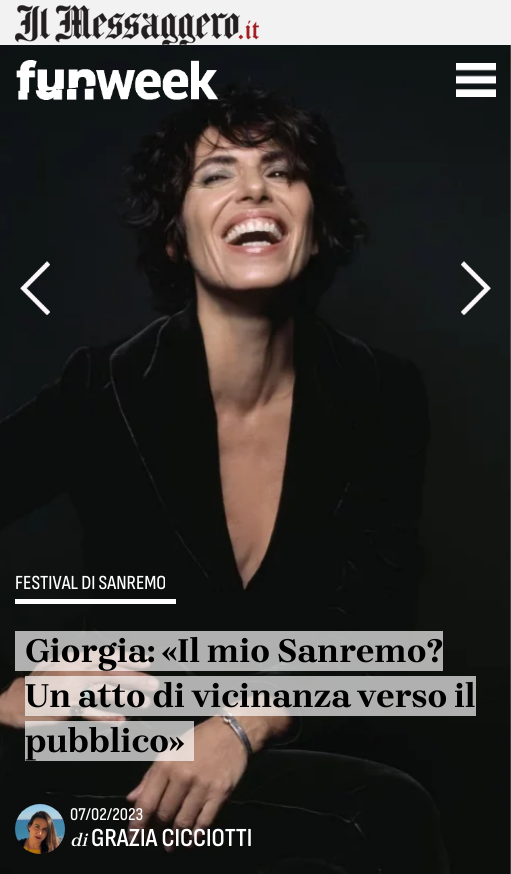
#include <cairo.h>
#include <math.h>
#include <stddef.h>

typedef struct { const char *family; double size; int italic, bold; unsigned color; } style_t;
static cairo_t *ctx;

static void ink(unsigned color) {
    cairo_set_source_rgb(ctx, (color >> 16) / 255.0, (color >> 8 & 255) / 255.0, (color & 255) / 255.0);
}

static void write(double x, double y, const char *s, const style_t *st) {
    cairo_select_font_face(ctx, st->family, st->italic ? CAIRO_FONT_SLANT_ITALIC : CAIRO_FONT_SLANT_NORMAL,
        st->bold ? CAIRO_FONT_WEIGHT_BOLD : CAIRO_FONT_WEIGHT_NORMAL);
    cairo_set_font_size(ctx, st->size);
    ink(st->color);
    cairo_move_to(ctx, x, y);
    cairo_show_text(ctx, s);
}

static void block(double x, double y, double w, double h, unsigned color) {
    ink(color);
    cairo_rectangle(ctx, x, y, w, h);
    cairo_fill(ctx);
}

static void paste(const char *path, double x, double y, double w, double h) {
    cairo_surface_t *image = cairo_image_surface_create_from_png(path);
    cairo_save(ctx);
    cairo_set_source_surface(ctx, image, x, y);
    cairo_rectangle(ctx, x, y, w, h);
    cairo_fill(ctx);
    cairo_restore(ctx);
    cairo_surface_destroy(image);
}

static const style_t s1 = {"Sofia Sans Condensed Medium", 20, 0, 0, 0xffffff};
static const style_t s2 = {"Brygada 1918", 34, 0, 1, 0x000000};
static const style_t s3 = {"Sofia Sans Condensed Medium", 18, 0, 0, 0xffffff};
static const style_t s4 = {"Brygada 1918 SemiBold", 18, 1, 0, 0xffffff};
static const style_t s5 = {"Sofia Sans Condensed SemiBold", 26, 0, 0, 0xffffff};

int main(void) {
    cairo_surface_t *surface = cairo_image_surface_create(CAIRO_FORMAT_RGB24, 511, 874);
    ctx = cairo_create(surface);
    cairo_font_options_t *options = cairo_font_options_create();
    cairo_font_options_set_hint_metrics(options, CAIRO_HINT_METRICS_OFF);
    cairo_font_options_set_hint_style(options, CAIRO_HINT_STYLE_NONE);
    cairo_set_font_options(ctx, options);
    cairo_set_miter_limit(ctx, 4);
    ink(0xffffff);
    cairo_paint(ctx);
    block(0, 0, 511, 45, 0xf2f2f2);
    paste("pic1.png", 15, 5, 244, 40);
    paste("pic6.png", 0, 45, 511, 829);
    paste("pic2.png", 16, 60, 202, 40);
    paste("pic3.png", 456, 63, 40, 34);
    paste("pic4.png", 20, 261, 30, 54);
    paste("pic5.png", 461, 261, 30, 54);
    block(15, 599, 161, 5, 0xffffff);
    write(15, 589, "FESTIVAL DI SANREMO", &s1);
    cairo_set_source_rgba(ctx, 1, 1, 1, 0.67);
    cairo_rectangle(ctx, 15, 631, 428, 40);
    cairo_fill(ctx);
    write(25, 662, "Giorgia: «Il mio Sanremo?", &s2);
    cairo_set_source_rgba(ctx, 1, 1, 1, 0.67);
    cairo_rectangle(ctx, 25, 676, 451, 40);
    cairo_fill(ctx);
    write(25, 707, "Un atto di vicinanza verso il", &s2);
    cairo_set_source_rgba(ctx, 1, 1, 1, 0.67);
    cairo_rectangle(ctx, 25, 721, 169, 40);
    cairo_fill(ctx);
    write(25, 752, "pubblico»", &s2);
    paste("pic7.png", 15, 804, 50, 50);
    write(70, 820, "07/02/2023", &s3);
    write(70, 846, "di", &s4);
    write(91, 846, "GRAZIA CICCIOTTI", &s5);
    cairo_surface_write_to_png(surface, "screenshot.png");
    cairo_font_options_destroy(options);
    cairo_destroy(ctx);
    cairo_surface_destroy(surface);
    return 0;
}
